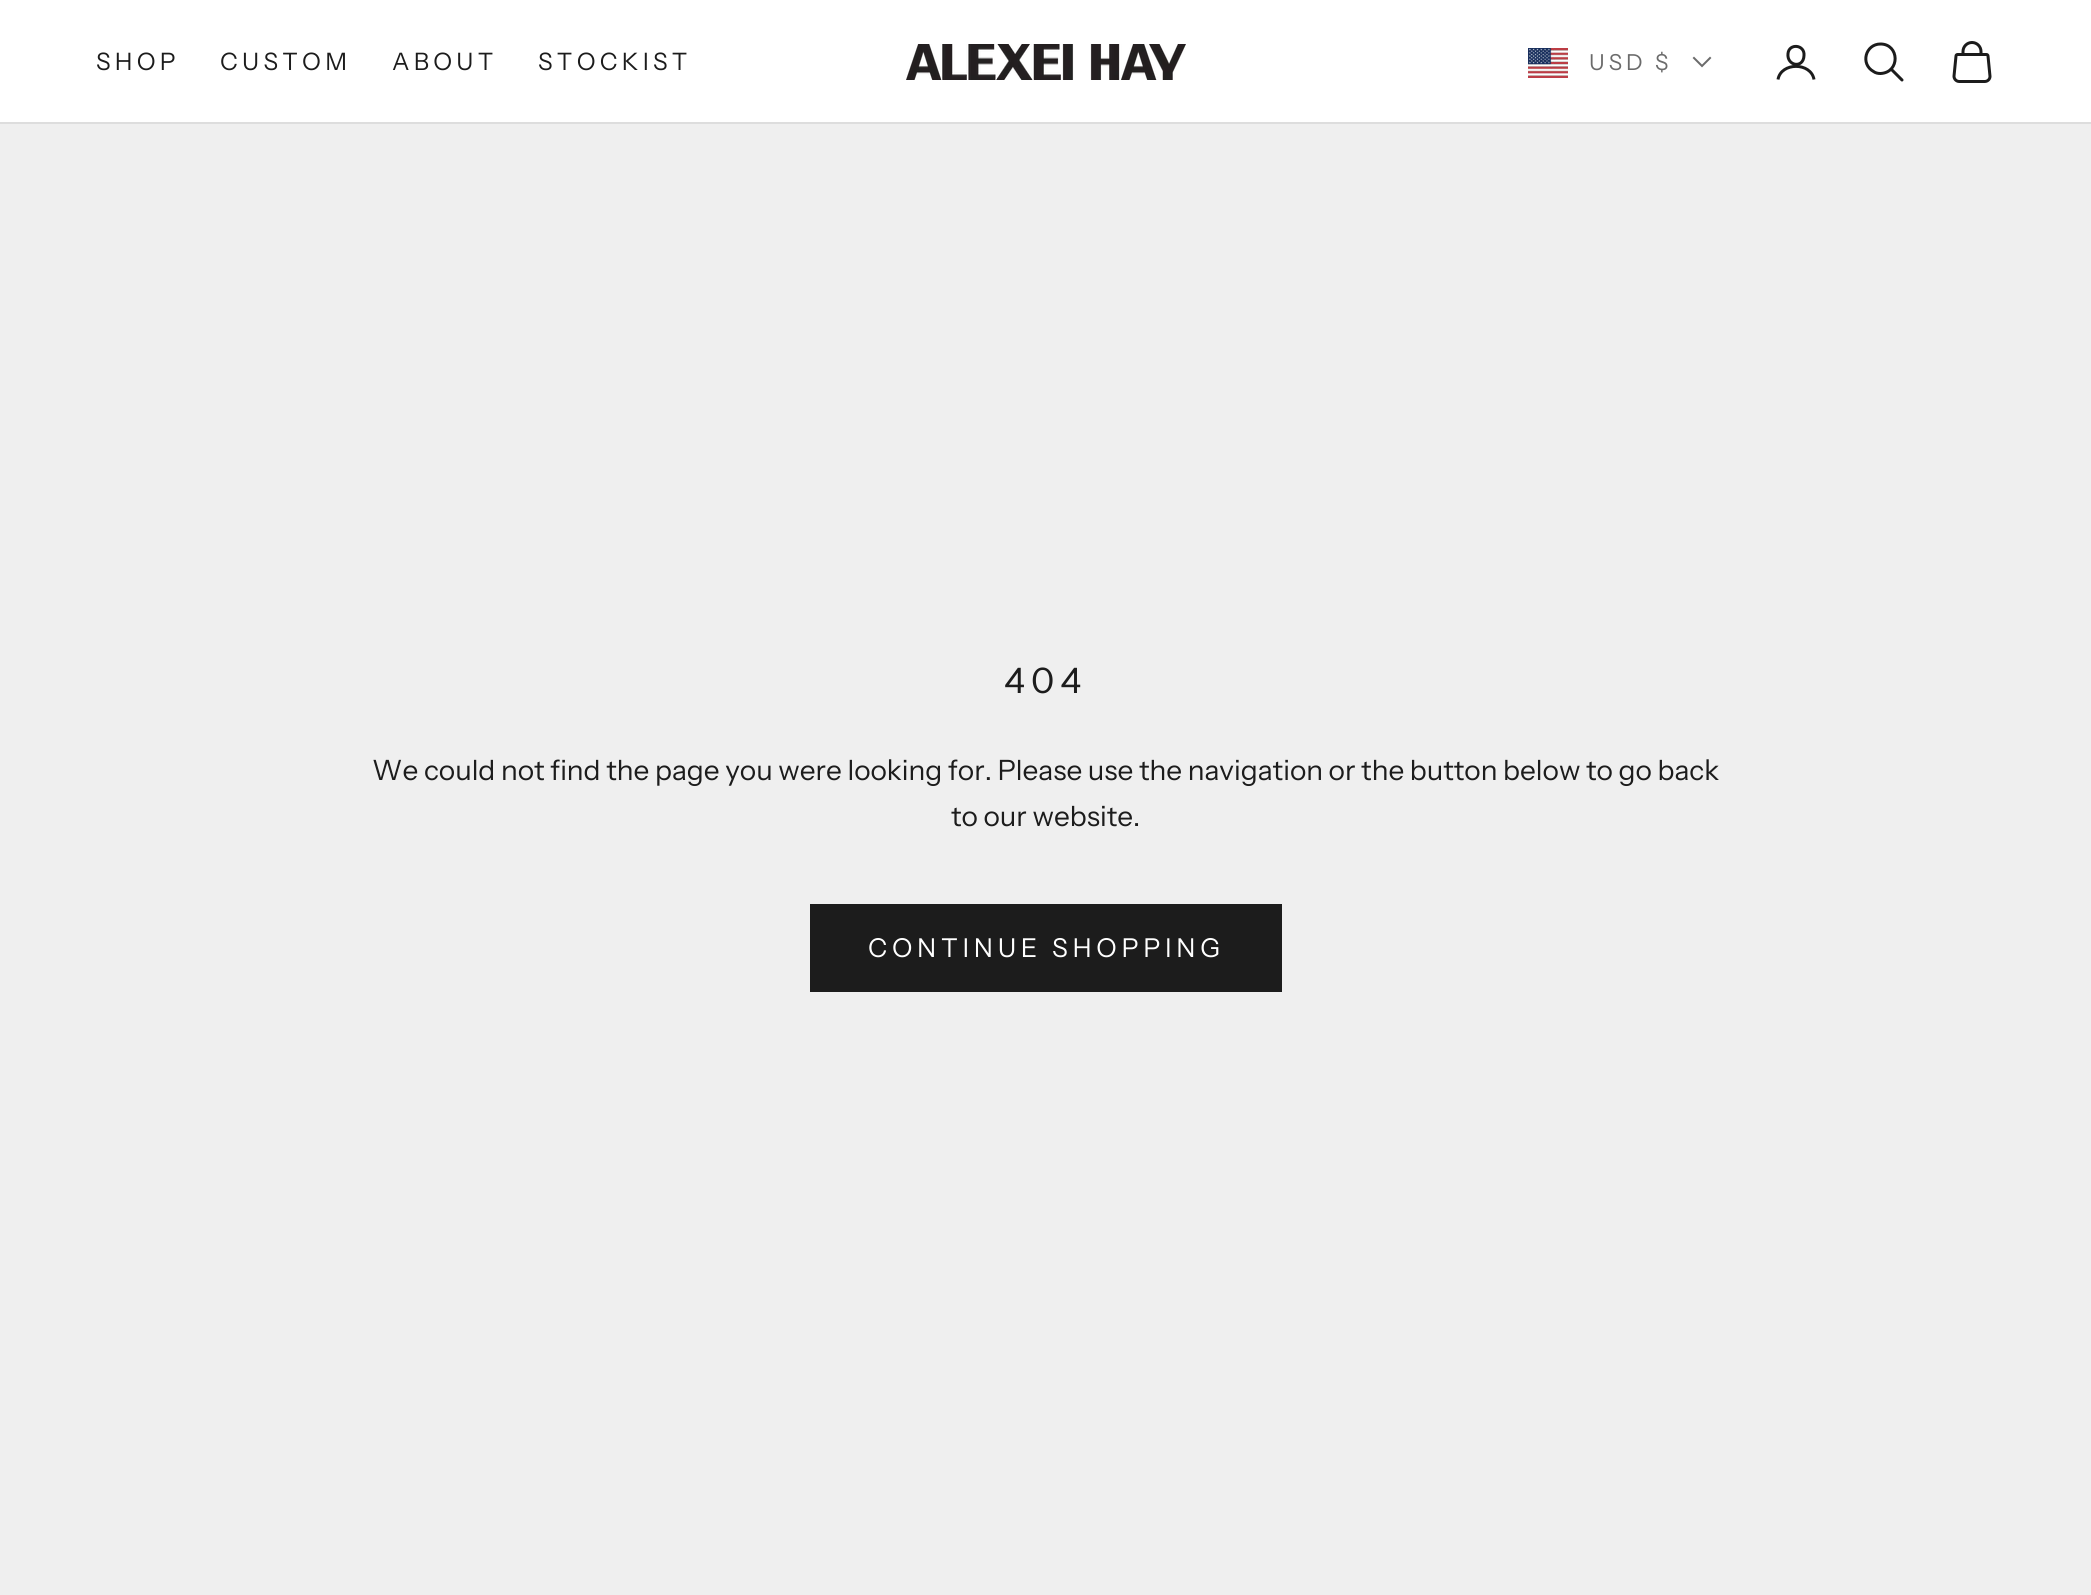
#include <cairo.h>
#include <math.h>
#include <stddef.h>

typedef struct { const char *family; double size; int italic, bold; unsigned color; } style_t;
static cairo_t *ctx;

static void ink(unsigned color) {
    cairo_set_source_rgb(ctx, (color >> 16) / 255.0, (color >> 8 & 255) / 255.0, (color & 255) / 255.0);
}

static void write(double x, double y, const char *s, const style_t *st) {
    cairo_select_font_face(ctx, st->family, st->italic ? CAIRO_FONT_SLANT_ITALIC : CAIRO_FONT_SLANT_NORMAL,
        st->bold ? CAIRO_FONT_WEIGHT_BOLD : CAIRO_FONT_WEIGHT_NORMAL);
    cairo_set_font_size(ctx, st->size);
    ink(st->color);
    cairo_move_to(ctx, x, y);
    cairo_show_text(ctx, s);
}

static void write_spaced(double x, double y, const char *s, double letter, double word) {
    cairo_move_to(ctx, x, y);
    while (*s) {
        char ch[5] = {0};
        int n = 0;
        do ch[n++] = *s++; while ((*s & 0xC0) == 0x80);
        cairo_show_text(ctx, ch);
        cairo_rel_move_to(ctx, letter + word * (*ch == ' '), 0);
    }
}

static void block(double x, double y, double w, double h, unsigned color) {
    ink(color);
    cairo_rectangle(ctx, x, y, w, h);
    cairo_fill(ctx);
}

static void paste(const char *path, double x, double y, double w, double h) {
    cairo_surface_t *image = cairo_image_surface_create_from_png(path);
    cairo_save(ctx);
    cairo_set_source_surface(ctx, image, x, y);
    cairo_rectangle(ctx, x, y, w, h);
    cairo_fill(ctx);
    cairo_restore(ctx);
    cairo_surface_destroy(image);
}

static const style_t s1 = {"Instrument Sans", 28, 0, 0, 0x1c1c1c};

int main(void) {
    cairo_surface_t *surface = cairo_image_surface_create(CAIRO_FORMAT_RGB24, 2091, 1595);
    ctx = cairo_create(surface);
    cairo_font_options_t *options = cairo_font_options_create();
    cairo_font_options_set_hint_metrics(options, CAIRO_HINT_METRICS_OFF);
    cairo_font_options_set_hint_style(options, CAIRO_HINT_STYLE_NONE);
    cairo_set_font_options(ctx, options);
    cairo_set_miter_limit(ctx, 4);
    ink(0xefefef);
    cairo_paint(ctx);
    block(0, 0, 2091, 122, 0xffffff);
    block(0, 122, 2091, 2, 0xdddddd);
    cairo_select_font_face(ctx, "Instrument Sans", CAIRO_FONT_SLANT_NORMAL, CAIRO_FONT_WEIGHT_NORMAL);
    cairo_set_font_size(ctx, 24);
    ink(0x1c1c1c);
    write_spaced(96, 70, "SHOP", 4.25, 0);
    write_spaced(220, 70, "CUSTOM", 4.25, 0);
    write_spaced(392, 70, "ABOUT", 4.25, 0);
    write_spaced(538, 70, "STOCKIST", 4.25, 0);
    paste("pic1.png", 906, 44, 280, 36);
    paste("pic2.png", 1528, 48, 40, 30);
    cairo_set_font_size(ctx, 22);
    ink(0x6b6b6b);
    write_spaced(1589, 70, "USD $", 4, 0);
    cairo_new_path(ctx);
    cairo_move_to(ctx, 1694, 58);
    cairo_line_to(ctx, 1702, 66);
    cairo_line_to(ctx, 1710, 58);
    cairo_set_line_cap(ctx, CAIRO_LINE_CAP_SQUARE);
    cairo_stroke(ctx);
    cairo_new_path(ctx);
    cairo_move_to(ctx, 1804, 55.5);
    cairo_curve_to(ctx, 1803.5, 69, 1786.5, 66, 1788, 53.5);
    cairo_curve_to(ctx, 1789, 43, 1805, 44.5, 1804, 55.5);
    cairo_close_path(ctx);
    ink(0x1c1c1c);
    cairo_set_line_width(ctx, 3);
    cairo_set_line_cap(ctx, CAIRO_LINE_CAP_ROUND);
    cairo_set_line_join(ctx, CAIRO_LINE_JOIN_ROUND);
    cairo_stroke(ctx);
    cairo_new_path(ctx);
    cairo_move_to(ctx, 1778, 79.5);
    cairo_curve_to(ctx, 1781, 62, 1811, 62, 1814, 79.5);
    cairo_set_line_cap(ctx, CAIRO_LINE_CAP_BUTT);
    cairo_set_line_join(ctx, CAIRO_LINE_JOIN_MITER);
    cairo_stroke(ctx);
    cairo_new_path(ctx);
    cairo_move_to(ctx, 1880.5, 44);
    cairo_curve_to(ctx, 1865.5, 44, 1860, 64, 1873.5, 71.5);
    cairo_curve_to(ctx, 1875.5, 73, 1878, 73.5, 1880.5, 73.5);
    cairo_curve_to(ctx, 1900.5, 72.5, 1899.5, 44, 1880.5, 44);
    cairo_close_path(ctx);
    cairo_stroke(ctx);
    cairo_new_path(ctx);
    cairo_move_to(ctx, 1891.5, 69.5);
    cairo_line_to(ctx, 1902, 80);
    cairo_set_line_cap(ctx, CAIRO_LINE_CAP_ROUND);
    cairo_stroke(ctx);
    paste("pic3.png", 1952, 41, 40, 42);
    cairo_set_font_size(ctx, 35);
    write_spaced(1004, 693, "404", 6, 0);
    write(372, 780, "We could not find the page you were looking for. Please use the navigation or the button below to go back", &s1);
    write(951, 826, "to our website.", &s1);
    cairo_rectangle(ctx, 811, 905, 470, 86);
    cairo_fill_preserve(ctx);
    cairo_set_line_width(ctx, 2);
    cairo_set_line_cap(ctx, CAIRO_LINE_CAP_BUTT);
    cairo_stroke(ctx);
    cairo_set_font_size(ctx, 26);
    ink(0xffffff);
    write_spaced(868, 957, "CONTINUE SHOPPING", 4.7, 0);
    cairo_surface_write_to_png(surface, "screenshot.png");
    cairo_font_options_destroy(options);
    cairo_destroy(ctx);
    cairo_surface_destroy(surface);
    return 0;
}
